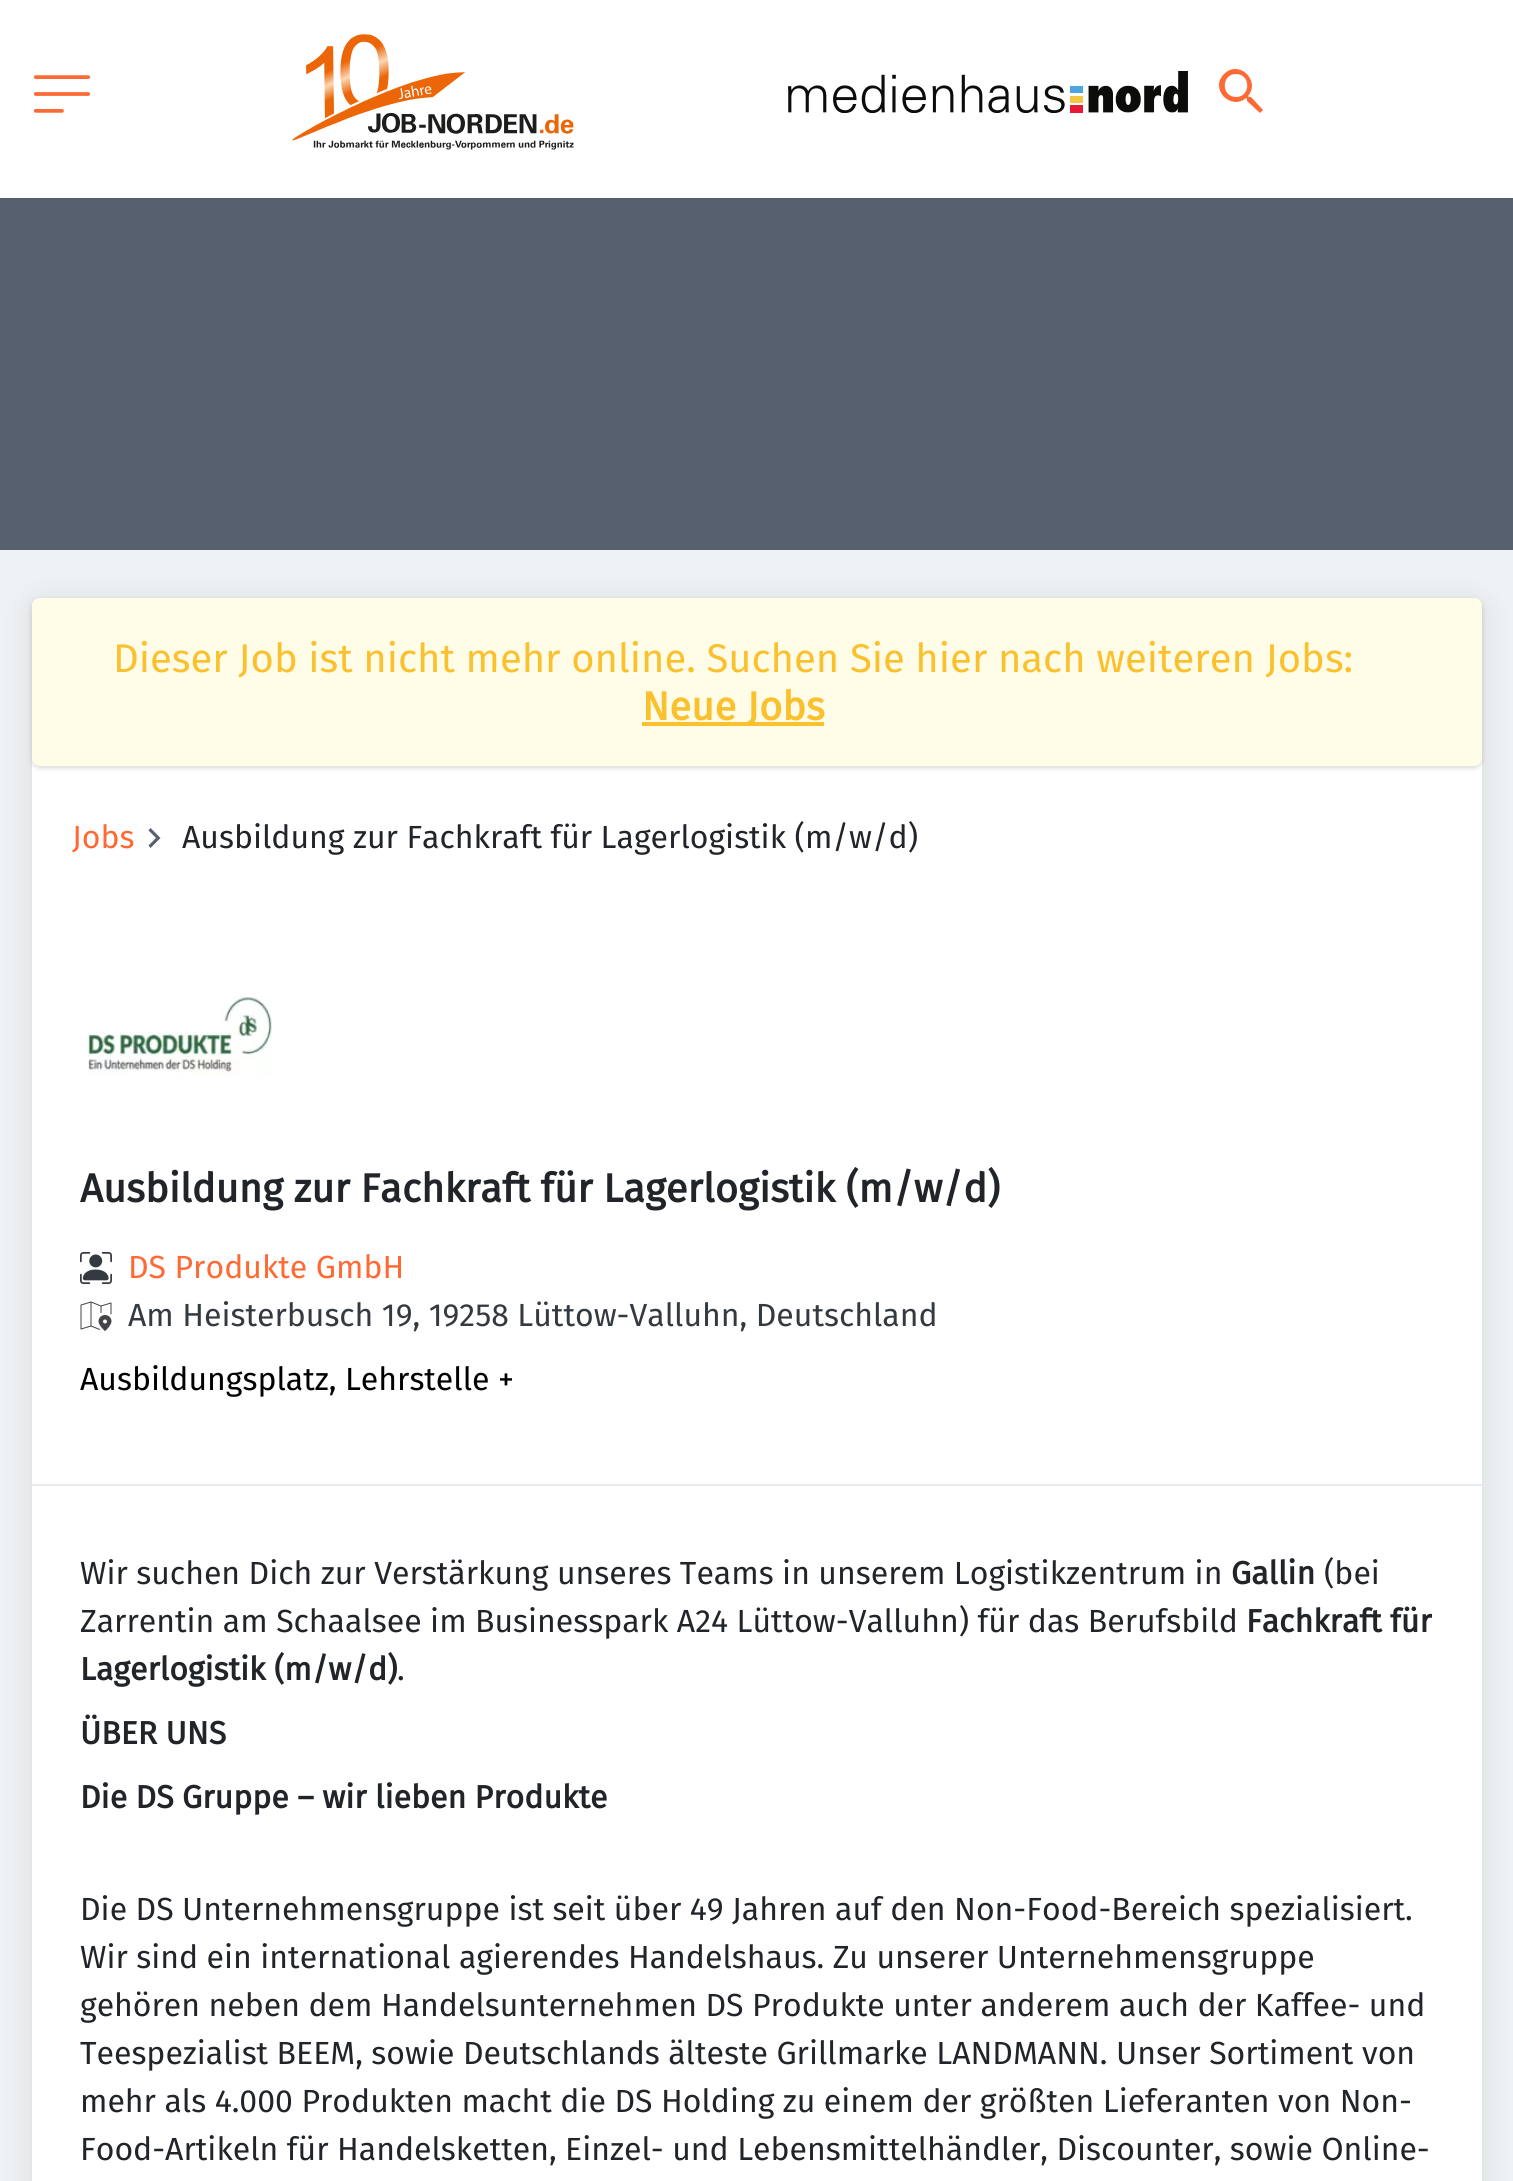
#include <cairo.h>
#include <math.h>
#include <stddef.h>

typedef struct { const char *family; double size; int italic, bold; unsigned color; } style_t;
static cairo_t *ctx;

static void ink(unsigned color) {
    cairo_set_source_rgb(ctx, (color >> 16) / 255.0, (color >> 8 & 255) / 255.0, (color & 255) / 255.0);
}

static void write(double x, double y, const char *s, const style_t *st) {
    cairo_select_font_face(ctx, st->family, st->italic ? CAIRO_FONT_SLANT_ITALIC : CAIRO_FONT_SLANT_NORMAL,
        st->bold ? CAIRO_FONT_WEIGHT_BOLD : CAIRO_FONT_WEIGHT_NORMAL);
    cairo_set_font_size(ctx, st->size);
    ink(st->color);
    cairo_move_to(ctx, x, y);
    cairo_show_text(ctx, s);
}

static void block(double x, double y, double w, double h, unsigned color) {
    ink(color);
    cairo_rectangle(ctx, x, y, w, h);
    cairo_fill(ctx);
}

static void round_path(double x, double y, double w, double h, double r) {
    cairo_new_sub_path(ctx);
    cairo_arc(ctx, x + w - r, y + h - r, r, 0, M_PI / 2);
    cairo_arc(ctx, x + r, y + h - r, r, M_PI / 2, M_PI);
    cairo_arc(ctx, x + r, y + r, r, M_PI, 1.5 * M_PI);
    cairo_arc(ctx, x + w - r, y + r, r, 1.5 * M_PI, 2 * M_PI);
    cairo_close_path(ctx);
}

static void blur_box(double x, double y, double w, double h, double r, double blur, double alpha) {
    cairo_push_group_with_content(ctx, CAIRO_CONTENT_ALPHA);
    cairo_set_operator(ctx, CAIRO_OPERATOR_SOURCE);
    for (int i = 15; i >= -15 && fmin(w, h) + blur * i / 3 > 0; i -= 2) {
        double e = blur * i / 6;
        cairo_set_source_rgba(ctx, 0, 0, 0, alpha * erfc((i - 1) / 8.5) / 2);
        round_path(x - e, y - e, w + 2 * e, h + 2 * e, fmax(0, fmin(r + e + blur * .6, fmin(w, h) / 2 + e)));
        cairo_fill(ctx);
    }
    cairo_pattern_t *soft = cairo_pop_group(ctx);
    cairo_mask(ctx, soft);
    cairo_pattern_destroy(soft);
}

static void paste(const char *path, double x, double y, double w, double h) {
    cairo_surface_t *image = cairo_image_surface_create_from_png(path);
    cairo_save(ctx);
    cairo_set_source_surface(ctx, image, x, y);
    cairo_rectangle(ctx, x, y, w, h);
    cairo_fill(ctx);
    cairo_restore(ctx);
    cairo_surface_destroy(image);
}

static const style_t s1 = {"Fira Sans", 40, 0, 0, 0xfbc02d};
static const style_t s2 = {"Fira Sans", 40, 0, 1, 0xfbc02d};
static const style_t s3 = {"Fira Sans", 32, 0, 0, 0xff6934};
static const style_t s4 = {"Fira Sans", 32, 0, 0, 0x212529};
static const style_t s5 = {"Fira Sans", 40, 0, 1, 0x212529};
static const style_t s6 = {"Fira Sans", 32, 0, 0, 0x343a40};
static const style_t s7 = {"Fira Sans", 32, 0, 0, 0x000000};
static const style_t s8 = {"Fira Sans", 32, 0, 1, 0x212529};

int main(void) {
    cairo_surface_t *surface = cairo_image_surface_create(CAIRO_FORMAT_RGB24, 1513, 2181);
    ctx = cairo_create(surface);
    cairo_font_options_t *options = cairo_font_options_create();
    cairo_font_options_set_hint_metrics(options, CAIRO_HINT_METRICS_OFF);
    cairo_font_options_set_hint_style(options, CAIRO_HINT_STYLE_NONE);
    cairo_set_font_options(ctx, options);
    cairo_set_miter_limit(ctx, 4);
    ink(0xeff2f4);
    cairo_paint(ctx);
    block(0, 0, 1513, 198, 0xffffff);
    paste("pic1.png", 33, 75, 58, 38);
    paste("pic2.png", 292, 34, 282, 116);
    paste("pic3.png", 788, 71, 400, 42);
    ink(0xff6934);
    cairo_new_path(ctx);
    cairo_move_to(ctx, 1251, 97);
    cairo_line_to(ctx, 1249, 97);
    cairo_line_to(ctx, 1248, 96);
    cairo_curve_to(ctx, 1261, 81, 1239, 59, 1224, 74);
    cairo_curve_to(ctx, 1209, 89, 1231, 111, 1246, 98);
    cairo_line_to(ctx, 1247, 99);
    cairo_line_to(ctx, 1247, 101);
    cairo_line_to(ctx, 1260, 113);
    cairo_line_to(ctx, 1263, 110);
    cairo_close_path(ctx);
    cairo_move_to(ctx, 1236, 97);
    cairo_curve_to(ctx, 1221, 97, 1221, 74, 1236, 74);
    cairo_curve_to(ctx, 1251, 74, 1251, 97, 1236, 97);
    cairo_close_path(ctx);
    cairo_fill(ctx);
    block(0, 198, 1513, 352, 0x57606f);
    ink(0x000000);
    blur_box(32, 604, 1450, 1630, 8, 15, 0.1);
    ink(0xffffff);
    round_path(32, 598, 1450, 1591, 8);
    cairo_fill(ctx);
    ink(0x000000);
    blur_box(32, 600, 1450, 168, 8, 2, 0.06);
    blur_box(32, 600, 1450, 168, 8, 3, 0.1);
    ink(0xfffde7);
    round_path(34, 600, 1446, 164, 6);
    cairo_fill_preserve(ctx);
    cairo_set_line_width(ctx, 4);
    cairo_stroke(ctx);
    write(113, 672, "Dieser Job ist nicht mehr online. Suchen Sie hier nach weiteren Jobs:", &s1);
    block(642, 722, 182, 4, 0xfbc02d);
    write(642, 720, "Neue Jobs", &s2);
    write(72, 848, "Jobs", &s3);
    ink(0x57606f);
    cairo_new_path(ctx);
    cairo_move_to(ctx, 148.5, 845.5);
    cairo_line_to(ctx, 156, 838);
    cairo_line_to(ctx, 148.5, 830.5);
    cairo_line_to(ctx, 150.5, 828);
    cairo_line_to(ctx, 160.5, 838);
    cairo_line_to(ctx, 150.5, 848);
    cairo_close_path(ctx);
    cairo_fill(ctx);
    write(182, 848, "Ausbildung zur Fachkraft für Lagerlogistik (m/w/d)", &s4);
    block(32, 1484, 1450, 2, 0xe9ecef);
    paste("pic4.png", 87, 996, 186, 80);
    write(80, 1202, "Ausbildung zur Fachkraft für Lagerlogistik (m/w/d)", &s5);
    paste("pic5.png", 80, 1252, 32, 32);
    write(128, 1278, "DS Produkte GmbH", &s3);
    paste("pic6.png", 80, 1301, 32, 30);
    write(128, 1326, "Am Heisterbusch 19, 19258 Lüttow-Valluhn, Deutschland", &s6);
    write(80, 1390, "Ausbildungsplatz, Lehrstelle +", &s7);
    write(80, 1584, "Wir suchen Dich zur Verstärkung unseres Teams in unserem Logistikzentrum in", &s4);
    write(1231, 1584, "Gallin", &s8);
    write(1324, 1584, "(bei", &s4);
    write(80, 1632, "Zarrentin am Schaalsee im Businesspark A24 Lüttow-Valluhn) für das Berufsbild", &s4);
    write(1246, 1632, "Fachkraft für", &s8);
    write(80, 1680, "Lagerlogistik (m/w/d)", &s8);
    write(397, 1680, ".", &s4);
    write(80, 1744, "ÜBER UNS", &s8);
    write(80, 1808, "Die DS Gruppe – wir lieben Produkte", &s8);
    write(80, 1920, "Die DS Unternehmensgruppe ist seit über 49 Jahren auf den Non-Food-Bereich spezialisiert.", &s4);
    write(80, 1968, "Wir sind ein international agierendes Handelshaus. Zu unserer Unternehmensgruppe", &s4);
    write(80, 2016, "gehören neben dem Handelsunternehmen DS Produkte unter anderem auch der Kaffee- und", &s4);
    write(80, 2064, "Teespezialist BEEM, sowie Deutschlands älteste Grillmarke LANDMANN. Unser Sortiment von", &s4);
    write(80, 2112, "mehr als 4.000 Produkten macht die DS Holding zu einem der größten Lieferanten von Non-", &s4);
    write(80, 2160, "Food-Artikeln für Handelsketten, Einzel- und Lebensmittelhändler, Discounter, sowie Online-", &s4);
    cairo_surface_write_to_png(surface, "screenshot.png");
    cairo_font_options_destroy(options);
    cairo_destroy(ctx);
    cairo_surface_destroy(surface);
    return 0;
}
